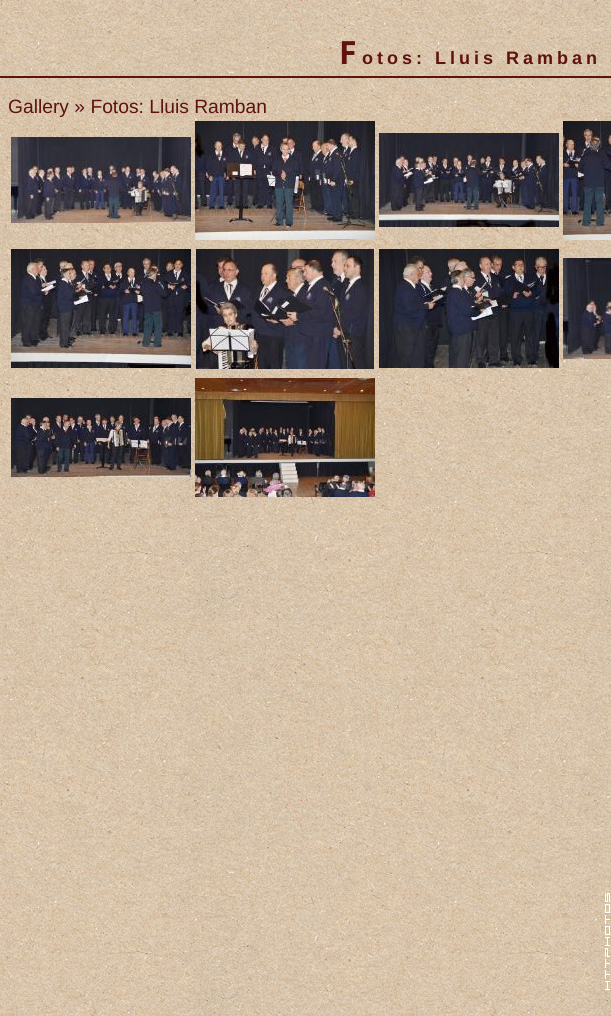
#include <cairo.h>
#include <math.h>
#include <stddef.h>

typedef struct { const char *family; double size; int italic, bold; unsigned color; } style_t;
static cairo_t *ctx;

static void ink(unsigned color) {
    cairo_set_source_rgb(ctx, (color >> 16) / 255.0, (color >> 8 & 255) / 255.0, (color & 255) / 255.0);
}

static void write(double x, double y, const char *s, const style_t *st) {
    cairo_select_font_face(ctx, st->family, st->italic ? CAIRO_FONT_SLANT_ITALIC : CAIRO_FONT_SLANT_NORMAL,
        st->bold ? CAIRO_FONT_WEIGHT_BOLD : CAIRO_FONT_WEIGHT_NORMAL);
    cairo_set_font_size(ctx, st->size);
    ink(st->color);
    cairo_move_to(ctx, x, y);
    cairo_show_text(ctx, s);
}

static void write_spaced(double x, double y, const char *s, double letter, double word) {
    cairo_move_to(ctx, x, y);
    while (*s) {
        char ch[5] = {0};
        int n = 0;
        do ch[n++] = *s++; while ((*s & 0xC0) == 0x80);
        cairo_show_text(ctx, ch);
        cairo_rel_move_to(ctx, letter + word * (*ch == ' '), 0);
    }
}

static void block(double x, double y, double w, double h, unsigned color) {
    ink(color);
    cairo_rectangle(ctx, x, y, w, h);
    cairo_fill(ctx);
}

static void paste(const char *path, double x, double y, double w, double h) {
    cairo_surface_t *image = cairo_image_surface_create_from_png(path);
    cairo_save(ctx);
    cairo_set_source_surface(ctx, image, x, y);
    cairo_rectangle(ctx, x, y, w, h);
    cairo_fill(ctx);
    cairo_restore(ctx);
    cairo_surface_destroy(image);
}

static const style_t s1 = {"Liberation Sans", 19.25, 0, 0, 0x5f1311};

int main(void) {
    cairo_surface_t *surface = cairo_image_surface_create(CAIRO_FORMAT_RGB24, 611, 1016);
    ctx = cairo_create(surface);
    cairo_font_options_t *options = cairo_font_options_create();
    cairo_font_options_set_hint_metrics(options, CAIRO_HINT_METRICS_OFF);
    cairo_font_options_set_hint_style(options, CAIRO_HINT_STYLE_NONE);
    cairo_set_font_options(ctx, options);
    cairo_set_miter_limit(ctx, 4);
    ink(0xffffff);
    cairo_paint(ctx);
    paste("pic1.png", 0, 0, 611, 1016);
    block(0, 76, 611, 2, 0x5f1311);
    cairo_select_font_face(ctx, "Noto Sans", CAIRO_FONT_SLANT_NORMAL, CAIRO_FONT_WEIGHT_BOLD);
    cairo_set_font_size(ctx, 32);
    write_spaced(339, 64, "F", 4, 0);
    cairo_select_font_face(ctx, "Liberation Sans", CAIRO_FONT_SLANT_NORMAL, CAIRO_FONT_WEIGHT_BOLD);
    cairo_set_font_size(ctx, 18);
    write_spaced(362, 64, "otos: Lluis Ramban", 4, 0);
    write(8, 113, "Gallery » Fotos: Lluis Ramban", &s1);
    paste("pic2.png", 11, 137, 180, 86);
    paste("pic3.png", 195, 121, 180, 119);
    paste("pic4.png", 379, 133, 180, 94);
    paste("pic5.png", 563, 121, 48, 119);
    paste("pic6.png", 11, 249, 180, 119);
    paste("pic7.png", 196, 249, 178, 120);
    paste("pic8.png", 379, 249, 180, 119);
    paste("pic9.png", 563, 258, 48, 101);
    paste("pic10.png", 11, 398, 180, 79);
    paste("pic11.png", 195, 378, 180, 119);
    paste("pic12.png", 605, 893, 5, 97);
    cairo_surface_write_to_png(surface, "screenshot.png");
    cairo_font_options_destroy(options);
    cairo_destroy(ctx);
    cairo_surface_destroy(surface);
    return 0;
}
